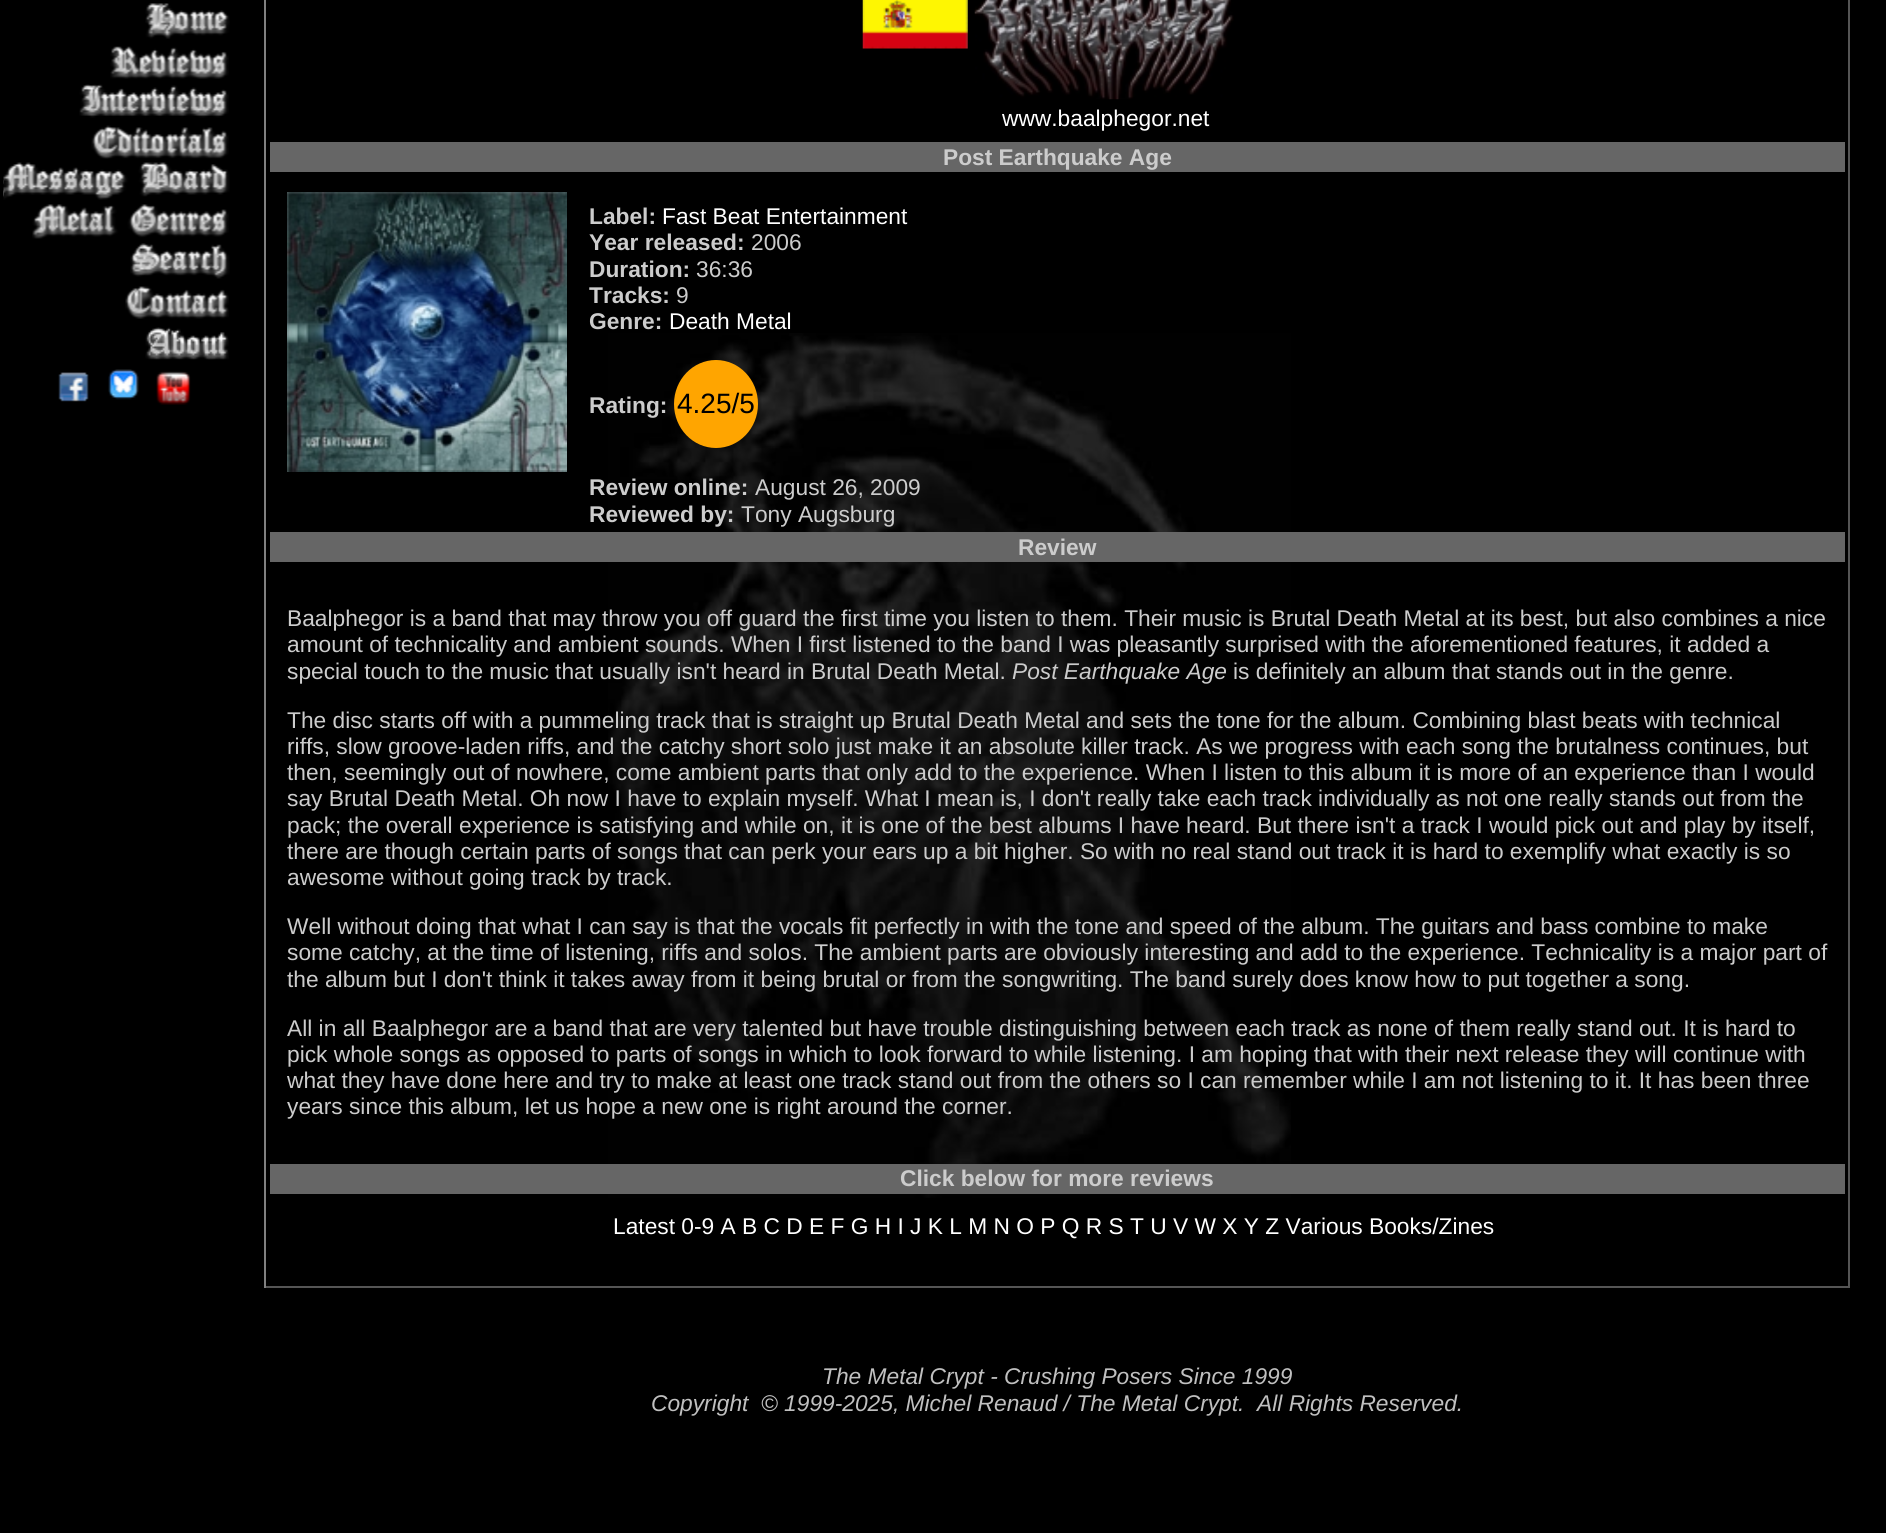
#include <cairo.h>
#include <math.h>
#include <stddef.h>

typedef struct { const char *family; double size; int italic, bold; unsigned color; } style_t;
static cairo_t *ctx;

static void ink(unsigned color) {
    cairo_set_source_rgb(ctx, (color >> 16) / 255.0, (color >> 8 & 255) / 255.0, (color & 255) / 255.0);
}

static void write(double x, double y, const char *s, const style_t *st) {
    cairo_select_font_face(ctx, st->family, st->italic ? CAIRO_FONT_SLANT_ITALIC : CAIRO_FONT_SLANT_NORMAL,
        st->bold ? CAIRO_FONT_WEIGHT_BOLD : CAIRO_FONT_WEIGHT_NORMAL);
    cairo_set_font_size(ctx, st->size);
    ink(st->color);
    cairo_move_to(ctx, x, y);
    cairo_show_text(ctx, s);
}

static void block(double x, double y, double w, double h, unsigned color) {
    ink(color);
    cairo_rectangle(ctx, x, y, w, h);
    cairo_fill(ctx);
}

static void paste(const char *path, double x, double y, double w, double h) {
    cairo_surface_t *image = cairo_image_surface_create_from_png(path);
    cairo_save(ctx);
    cairo_set_source_surface(ctx, image, x, y);
    cairo_rectangle(ctx, x, y, w, h);
    cairo_fill(ctx);
    cairo_restore(ctx);
    cairo_surface_destroy(image);
}

static const style_t s1 = {"Liberation Sans", 22.75, 0, 0, 0xffffff};
static const style_t s2 = {"Liberation Sans", 22.75, 0, 1, 0xcccccc};
static const style_t s3 = {"Liberation Sans", 22.75, 0, 0, 0xcccccc};
static const style_t s4 = {"Liberation Sans", 28, 0, 0, 0x000000};
static const style_t s5 = {"Liberation Sans", 22.75, 1, 0, 0xcccccc};
static const style_t s6 = {"Liberation Sans", 22.75, 1, 0, 0xc0c0c0};

int main(void) {
    cairo_surface_t *surface = cairo_image_surface_create(CAIRO_FORMAT_RGB24, 1886, 1533);
    ctx = cairo_create(surface);
    cairo_font_options_t *options = cairo_font_options_create();
    cairo_font_options_set_hint_metrics(options, CAIRO_HINT_METRICS_OFF);
    cairo_font_options_set_hint_style(options, CAIRO_HINT_STYLE_NONE);
    cairo_set_font_options(ctx, options);
    cairo_set_miter_limit(ctx, 4);
    ink(0x000000);
    cairo_paint(ctx);
    paste("pic1.png", 608, 333, 683, 865);
    paste("pic2.png", 146, 3, 83, 1);
    paste("pic3.png", 145, 4, 85, 35);
    paste("pic4.png", 110, 44, 119, 35);
    paste("pic5.png", 79, 84, 148, 1);
    paste("pic6.png", 79, 85, 150, 33);
    paste("pic7.png", 91, 123, 138, 36);
    paste("pic8.png", 3, 165, 1, 34);
    paste("pic9.png", 3, 162, 227, 38);
    paste("pic10.png", 32, 204, 197, 35);
    paste("pic11.png", 130, 243, 100, 36);
    paste("pic12.png", 125, 286, 104, 33);
    paste("pic13.png", 145, 327, 84, 33);
    paste("pic14.png", 58, 372, 31, 30);
    paste("pic15.png", 108, 369, 31, 31);
    paste("pic16.png", 156, 371, 35, 34);
    block(1848, 0, 2, 1288, 0x555555);
    block(264, 1286, 1586, 2, 0x555555);
    block(264, 0, 2, 1288, 0x808080);
    paste("pic17.png", 862, 0, 106, 49);
    paste("pic18.png", 974, 0, 260, 100);
    write(1002, 126, "www.baalphegor.net", &s1);
    block(270, 142, 1575, 30, 0x666666);
    write(943, 165, "Post Earthquake Age", &s2);
    paste("pic19.png", 287, 192, 280, 280);
    write(589, 224, "Label:", &s2);
    write(662, 224, "Fast Beat Entertainment", &s1);
    write(589, 250, "Year released:", &s2);
    write(751, 250, "2006", &s3);
    write(589, 277, "Duration:", &s2);
    write(696, 277, "36:36", &s3);
    write(589, 303, "Tracks:", &s2);
    write(676, 303, "9", &s3);
    write(589, 329, "Genre:", &s2);
    write(669, 329, "Death Metal", &s1);
    write(589, 413, "Rating:", &s2);
    ink(0xffa500);
    cairo_new_path(ctx);
    cairo_move_to(ctx, 716, 360);
    cairo_curve_to(ctx, 739, 360, 758, 379.5, 758, 404);
    cairo_curve_to(ctx, 758, 428.5, 739, 448, 716, 448);
    cairo_curve_to(ctx, 693, 448, 674, 428.5, 674, 404);
    cairo_curve_to(ctx, 674, 379.5, 693, 360, 716, 360);
    cairo_close_path(ctx);
    cairo_fill(ctx);
    write(677, 413, "4.25/5", &s4);
    write(589, 495, "Review online:", &s2);
    write(755, 495, "August 26, 2009", &s3);
    write(589, 522, "Reviewed by:", &s2);
    write(741, 522, "Tony Augsburg", &s3);
    block(270, 532, 1575, 30, 0x666666);
    write(1018, 555, "Review", &s2);
    write(287, 626, "Baalphegor is a band that may throw you off guard the first time you listen to them. Their music is Brutal Death Metal at its best, but also combines a nice", &s3);
    write(287, 652, "amount of technicality and ambient sounds. When I first listened to the band I was pleasantly surprised with the aforementioned features, it added a", &s3);
    write(287, 679, "special touch to the music that usually isn't heard in Brutal Death Metal.", &s3);
    write(1012, 679, "Post Earthquake Age", &s5);
    write(1233, 679, "is definitely an album that stands out in the genre.", &s3);
    write(287, 728, "The disc starts off with a pummeling track that is straight up Brutal Death Metal and sets the tone for the album. Combining blast beats with technical", &s3);
    write(287, 754, "riffs, slow groove-laden riffs, and the catchy short solo just make it an absolute killer track. As we progress with each song the brutalness continues, but", &s3);
    write(287, 780, "then, seemingly out of nowhere, come ambient parts that only add to the experience. When I listen to this album it is more of an experience than I would", &s3);
    write(287, 806, "say Brutal Death Metal. Oh now I have to explain myself. What I mean is, I don't really take each track individually as not one really stands out from the", &s3);
    write(287, 833, "pack; the overall experience is satisfying and while on, it is one of the best albums I have heard. But there isn't a track I would pick out and play by itself,", &s3);
    write(287, 859, "there are though certain parts of songs that can perk your ears up a bit higher. So with no real stand out track it is hard to exemplify what exactly is so", &s3);
    write(287, 885, "awesome without going track by track.", &s3);
    write(287, 934, "Well without doing that what I can say is that the vocals fit perfectly in with the tone and speed of the album. The guitars and bass combine to make", &s3);
    write(287, 960, "some catchy, at the time of listening, riffs and solos. The ambient parts are obviously interesting and add to the experience. Technicality is a major part of", &s3);
    write(287, 987, "the album but I don't think it takes away from it being brutal or from the songwriting. The band surely does know how to put together a song.", &s3);
    write(287, 1036, "All in all Baalphegor are a band that are very talented but have trouble distinguishing between each track as none of them really stand out. It is hard to", &s3);
    write(287, 1062, "pick whole songs as opposed to parts of songs in which to look forward to while listening. I am hoping that with their next release they will continue with", &s3);
    write(287, 1088, "what they have done here and try to make at least one track stand out from the others so I can remember while I am not listening to it. It has been three", &s3);
    write(287, 1114, "years since this album, let us hope a new one is right around the corner.", &s3);
    block(270, 1164, 1575, 30, 0x666666);
    write(900, 1186, "Click below for more reviews", &s2);
    write(613, 1234, "Latest 0-9 A B C D E F G H I J K L M N O P Q R S T U V W X Y Z Various Books/Zines", &s1);
    write(822, 1384, "The Metal Crypt - Crushing Posers Since 1999", &s6);
    write(651, 1411, "Copyright  © 1999-2025, Michel Renaud / The Metal Crypt.  All Rights Reserved.", &s6);
    cairo_surface_write_to_png(surface, "screenshot.png");
    cairo_font_options_destroy(options);
    cairo_destroy(ctx);
    cairo_surface_destroy(surface);
    return 0;
}
